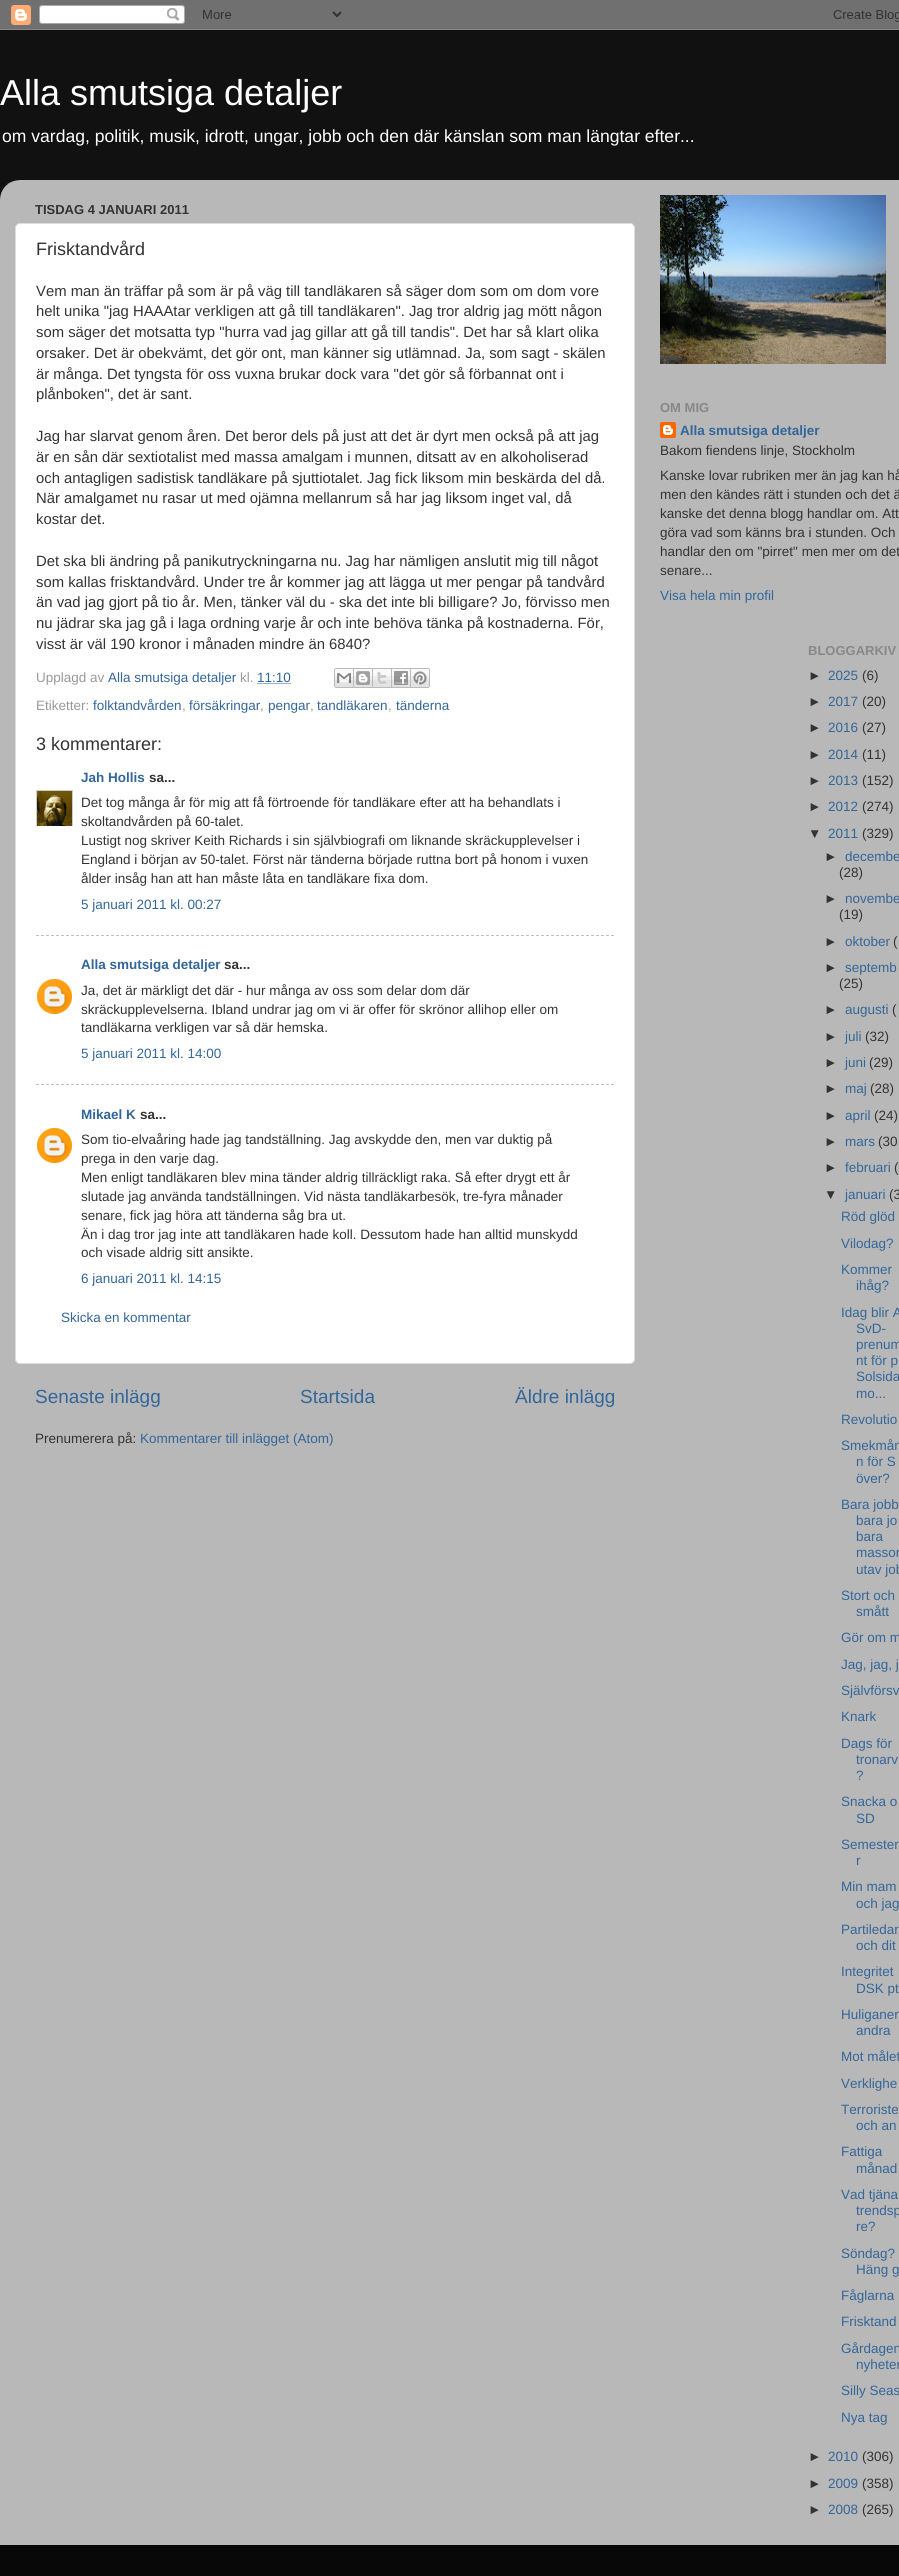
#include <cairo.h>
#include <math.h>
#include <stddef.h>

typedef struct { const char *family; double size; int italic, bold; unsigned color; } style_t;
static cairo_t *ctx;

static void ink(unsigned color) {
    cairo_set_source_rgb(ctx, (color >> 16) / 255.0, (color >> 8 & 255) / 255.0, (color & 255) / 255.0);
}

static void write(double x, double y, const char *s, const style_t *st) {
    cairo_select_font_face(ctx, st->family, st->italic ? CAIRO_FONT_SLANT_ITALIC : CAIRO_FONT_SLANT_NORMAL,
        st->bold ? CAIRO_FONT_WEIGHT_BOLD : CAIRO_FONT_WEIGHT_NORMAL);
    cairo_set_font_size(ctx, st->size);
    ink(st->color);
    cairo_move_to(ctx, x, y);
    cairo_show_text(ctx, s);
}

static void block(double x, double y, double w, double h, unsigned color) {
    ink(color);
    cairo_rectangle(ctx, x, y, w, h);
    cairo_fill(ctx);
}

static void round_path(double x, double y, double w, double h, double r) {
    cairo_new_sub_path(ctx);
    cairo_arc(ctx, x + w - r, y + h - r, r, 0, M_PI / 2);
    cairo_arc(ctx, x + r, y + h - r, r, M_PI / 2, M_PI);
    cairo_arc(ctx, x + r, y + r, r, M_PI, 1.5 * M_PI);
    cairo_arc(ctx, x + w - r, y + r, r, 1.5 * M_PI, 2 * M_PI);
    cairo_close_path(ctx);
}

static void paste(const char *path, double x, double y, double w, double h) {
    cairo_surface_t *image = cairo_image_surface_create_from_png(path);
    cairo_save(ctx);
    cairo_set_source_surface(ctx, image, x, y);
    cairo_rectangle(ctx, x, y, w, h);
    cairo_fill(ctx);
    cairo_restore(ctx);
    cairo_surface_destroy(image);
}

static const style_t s1 = {"Liberation Sans", 36, 0, 0, 0xffffff};
static const style_t s2 = {"Liberation Sans", 17.55, 0, 0, 0xffffff};
static const style_t s3 = {"Liberation Sans", 13, 0, 1, 0x333333};
static const style_t s4 = {"Liberation Sans", 18, 0, 0, 0x333333};
static const style_t s5 = {"Liberation Sans", 14.85, 0, 0, 0x333333};
static const style_t s6 = {"Liberation Sans", 13.5, 0, 0, 0x999999};
static const style_t s7 = {"Liberation Sans", 13.5, 0, 0, 0x336699};
static const style_t s8 = {"Liberation Sans", 13.5, 0, 1, 0x336699};
static const style_t s9 = {"Liberation Sans", 13.5, 0, 1, 0x333333};
static const style_t s10 = {"Liberation Sans", 13.5, 0, 0, 0x333333};
static const style_t s11 = {"Liberation Sans", 19, 0, 0, 0x336699};
static const style_t s12 = {"Liberation Sans", 13, 0, 1, 0x888888};

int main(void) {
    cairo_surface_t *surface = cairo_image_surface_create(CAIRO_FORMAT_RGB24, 899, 2576);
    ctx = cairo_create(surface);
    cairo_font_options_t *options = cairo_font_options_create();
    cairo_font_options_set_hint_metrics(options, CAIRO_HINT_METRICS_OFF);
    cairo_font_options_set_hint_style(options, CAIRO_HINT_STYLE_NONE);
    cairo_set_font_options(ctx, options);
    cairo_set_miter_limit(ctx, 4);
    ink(0x111111);
    cairo_paint(ctx);
    paste("pic1.png", 0, 0, 899, 30);
    write(0, 105, "Alla smutsiga detaljer", &s1);
    write(2, 142, "om vardag, politik, musik, idrott, ungar, jobb och den där känslan som man längtar efter...", &s2);
    paste("pic2.png", 0, 180, 899, 2365);
    write(35, 214, "TISDAG 4 JANUARI 2011", &s3);
    ink(0xffffff);
    round_path(15.5, 223.5, 619, 1140, 4.5);
    cairo_fill_preserve(ctx);
    ink(0xdddddd);
    cairo_set_line_width(ctx, 1);
    cairo_stroke(ctx);
    write(36, 255, "Frisktandvård", &s4);
    write(36, 296, "Vem man än träffar på som är på väg till tandläkaren så säger dom som om dom vore", &s5);
    write(36, 316, "helt unika \"jag HAAAtar verkligen att gå till tandläkaren\". Jag tror aldrig jag mött någon", &s5);
    write(36, 337, "som säger det motsatta typ \"hurra vad jag gillar att gå till tandis\". Det har så klart olika", &s5);
    write(36, 358, "orsaker. Det är obekvämt, det gör ont, man känner sig utlämnad. Ja, som sagt - skälen", &s5);
    write(36, 379, "är många. Det tyngsta för oss vuxna brukar dock vara \"det gör så förbannat ont i", &s5);
    write(36, 399, "plånboken\", det är sant.", &s5);
    write(36, 441, "Jag har slarvat genom åren. Det beror dels på just att det är dyrt men också på att jag", &s5);
    write(36, 462, "är en sån där sextiotalist med massa amalgam i munnen, ditsatt av en alkoholiserad", &s5);
    write(36, 483, "och antagligen sadistisk tandläkare på sjuttiotalet. Jag fick liksom min beskärda del då.", &s5);
    write(36, 503, "När amalgamet nu rasar ut med ojämna mellanrum så har jag liksom inget val, då", &s5);
    write(36, 524, "kostar det.", &s5);
    write(36, 566, "Det ska bli ändring på panikutryckningarna nu. Jag har nämligen anslutit mig till något", &s5);
    write(36, 587, "som kallas frisktandvård. Under tre år kommer jag att lägga ut mer pengar på tandvård", &s5);
    write(36, 607, "än vad jag gjort på tio år. Men, tänker väl du - ska det inte bli billigare? Jo, förvisso men", &s5);
    write(36, 628, "nu jädrar ska jag gå i laga ordning varje år och inte behöva tänka på kostnaderna. För,", &s5);
    write(36, 649, "visst är väl 190 kronor i månaden mindre än 6840?", &s5);
    write(36, 682, "Upplagd av", &s6);
    write(108, 682, "Alla smutsiga detaljer", &s7);
    write(240, 682, "kl.", &s6);
    write(257, 682, "11:10", &s7);
    cairo_new_path(ctx);
    cairo_move_to(ctx, 257.5, 683.5);
    cairo_line_to(ctx, 291, 683.5);
    cairo_set_dash(ctx, (double[]){1, 1}, 2, 0);
    cairo_stroke(ctx);
    paste("pic3.png", 334, 668, 20, 20);
    paste("pic4.png", 354, 668, 19, 20);
    paste("pic5.png", 373, 668, 19, 20);
    paste("pic6.png", 392, 668, 19, 20);
    paste("pic7.png", 411, 668, 19, 20);
    write(36, 710, "Etiketter:", &s6);
    write(93, 710, "folktandvården", &s7);
    write(182, 710, ",", &s6);
    write(189, 710, "försäkringar", &s7);
    write(260, 710, ",", &s6);
    write(268, 710, "pengar", &s7);
    write(310, 710, ",", &s6);
    write(317, 710, "tandläkaren", &s7);
    write(388, 710, ",", &s6);
    write(396, 710, "tänderna", &s7);
    write(36, 750, "3 kommentarer:", &s4);
    write(81, 782, "Jah Hollis", &s8);
    write(149, 782, "sa...", &s9);
    cairo_save(ctx);
    cairo_rectangle(ctx, 36, 790, 37, 36);
    cairo_clip(ctx);
    cairo_rectangle(ctx, 36.5, 790.5, 36, 36);
    ink(0xcccccc);
    cairo_set_dash(ctx, NULL, 0, 0);
    cairo_stroke(ctx);
    cairo_restore(ctx);
    paste("pic8.png", 37, 791, 35, 35);
    write(81, 807, "Det tog många år för mig att få förtroende för tandläkare efter att ha behandlats i", &s10);
    write(81, 826, "skoltandvården på 60-talet.", &s10);
    write(81, 845, "Lustigt nog skriver Keith Richards i sin självbiografi om liknande skräckupplevelser i", &s10);
    write(81, 864, "England i början av 50-talet. Först när tänderna började ruttna bort på honom i vuxen", &s10);
    write(81, 883, "ålder insåg han att han måste låta en tandläkare fixa dom.", &s10);
    write(81, 909, "5 januari 2011 kl. 00:27", &s7);
    cairo_new_path(ctx);
    cairo_move_to(ctx, 36, 935.5);
    cairo_line_to(ctx, 614, 935.5);
    ink(0xc0c0c0);
    cairo_set_dash(ctx, (double[]){3, 2}, 2, 0);
    cairo_stroke(ctx);
    write(81, 969, "Alla smutsiga detaljer", &s8);
    write(224, 969, "sa...", &s9);
    paste("pic9.png", 37, 979, 35, 35);
    write(81, 995, "Ja, det är märkligt det där - hur många av oss som delar dom där", &s10);
    write(81, 1014, "skräckupplevelserna. Ibland undrar jag om vi är offer för skrönor allihop eller om", &s10);
    write(81, 1032, "tandläkarna verkligen var så där hemska.", &s10);
    write(81, 1058, "5 januari 2011 kl. 14:00", &s7);
    cairo_new_path(ctx);
    cairo_move_to(ctx, 36, 1084.5);
    cairo_line_to(ctx, 614, 1084.5);
    ink(0xc0c0c0);
    cairo_stroke(ctx);
    write(81, 1119, "Mikael K", &s8);
    write(140, 1119, "sa...", &s9);
    paste("pic9.png", 37, 1128, 35, 35);
    write(81, 1144, "Som tio-elvaåring hade jag tandställning. Jag avskydde den, men var duktig på", &s10);
    write(81, 1163, "prega in den varje dag.", &s10);
    write(81, 1182, "Men enligt tandläkaren blev mina tänder aldrig tillräckligt raka. Så efter drygt ett år", &s10);
    write(81, 1201, "slutade jag använda tandställningen. Vid nästa tandläkarbesök, tre-fyra månader", &s10);
    write(81, 1220, "senare, fick jag höra att tänderna såg bra ut.", &s10);
    write(81, 1239, "Än i dag tror jag inte att tandläkaren hade koll. Dessutom hade han alltid munskydd", &s10);
    write(81, 1257, "och visade aldrig sitt ansikte.", &s10);
    write(81, 1283, "6 januari 2011 kl. 14:15", &s7);
    write(61, 1322, "Skicka en kommentar", &s7);
    write(35, 1403, "Senaste inlägg", &s11);
    write(300, 1403, "Startsida", &s11);
    write(515, 1403, "Äldre inlägg", &s11);
    write(35, 1443, "Prenumerera på:", &s10);
    write(140, 1443, "Kommentarer till inlägget (Atom)", &s7);
    paste("pic10.png", 660, 195, 226, 169);
    write(660, 412, "OM MIG", &s12);
    paste("pic11.png", 660, 422, 16, 16);
    write(680, 435, "Alla smutsiga detaljer", &s8);
    write(660, 455, "Bakom fiendens linje, Stockholm", &s10);
    write(660, 480, "Kanske lovar rubriken mer än jag kan hå", &s10);
    write(660, 499, "men den kändes rätt i stunden och det ä", &s10);
    write(660, 518, "kanske det denna blogg handlar om. Att", &s10);
    write(660, 537, "göra vad som känns bra i stunden. Och", &s10);
    write(660, 556, "handlar den om \"pirret\" men mer om det", &s10);
    write(660, 575, "senare...", &s10);
    write(660, 600, "Visa hela min profil", &s7);
    write(808, 655, "BLOGGARKIV", &s12);
    write(808, 680, "►", &s10);
    write(828, 680, "2025", &s7);
    write(862, 680, "(6)", &s10);
    write(808, 706, "►", &s10);
    write(828, 706, "2017", &s7);
    write(862, 706, "(20)", &s10);
    write(808, 732, "►", &s10);
    write(828, 732, "2016", &s7);
    write(862, 732, "(27)", &s10);
    write(808, 759, "►", &s10);
    write(828, 759, "2014", &s7);
    write(862, 759, "(11)", &s10);
    write(808, 785, "►", &s10);
    write(828, 785, "2013", &s7);
    write(862, 785, "(152)", &s10);
    write(808, 811, "►", &s10);
    write(828, 811, "2012", &s7);
    write(862, 811, "(274)", &s10);
    write(808, 838, "▼", &s10);
    write(828, 838, "2011", &s7);
    write(862, 838, "(329)", &s10);
    write(824, 861, "►", &s10);
    write(845, 861, "decembe", &s7);
    write(839, 877, "(28)", &s10);
    write(824, 903, "►", &s10);
    write(845, 903, "novembe", &s7);
    write(839, 919, "(19)", &s10);
    write(824, 946, "►", &s10);
    write(845, 946, "oktober", &s7);
    write(893, 946, "(", &s10);
    write(824, 972, "►", &s10);
    write(845, 972, "septemb", &s7);
    write(839, 988, "(25)", &s10);
    write(824, 1014, "►", &s10);
    write(845, 1014, "augusti", &s7);
    write(892, 1014, "(", &s10);
    write(824, 1041, "►", &s10);
    write(845, 1041, "juli", &s7);
    write(865, 1041, "(32)", &s10);
    write(824, 1067, "►", &s10);
    write(845, 1067, "juni", &s7);
    write(869, 1067, "(29)", &s10);
    write(824, 1093, "►", &s10);
    write(845, 1093, "maj", &s7);
    write(870, 1093, "(28)", &s10);
    write(824, 1120, "►", &s10);
    write(845, 1120, "april", &s7);
    write(874, 1120, "(24)", &s10);
    write(824, 1146, "►", &s10);
    write(845, 1146, "mars", &s7);
    write(878, 1146, "(30", &s10);
    write(824, 1172, "►", &s10);
    write(845, 1172, "februari", &s7);
    write(894, 1172, "(", &s10);
    write(824, 1199, "▼", &s10);
    write(845, 1199, "januari", &s7);
    write(889, 1199, "(3", &s10);
    write(841, 1221, "Röd glöd", &s7);
    write(841, 1248, "Vilodag?", &s7);
    write(841, 1274, "Kommer", &s7);
    write(856, 1290, "ihåg?", &s7);
    write(841, 1317, "Idag blir A", &s7);
    write(856, 1333, "SvD-", &s7);
    write(856, 1349, "prenum", &s7);
    write(856, 1365, "nt för p", &s7);
    write(856, 1381, "Solsida", &s7);
    write(856, 1398, "mo...", &s7);
    write(841, 1424, "Revolutio", &s7);
    write(841, 1450, "Smekmån", &s7);
    write(856, 1466, "n för S", &s7);
    write(856, 1483, "över?", &s7);
    write(841, 1509, "Bara jobb", &s7);
    write(856, 1525, "bara jo", &s7);
    write(856, 1541, "bara", &s7);
    write(856, 1557, "massor", &s7);
    write(856, 1574, "utav job", &s7);
    write(841, 1600, "Stort och", &s7);
    write(856, 1616, "smått", &s7);
    write(841, 1642, "Gör om m", &s7);
    write(841, 1669, "Jag, jag, j", &s7);
    write(841, 1695, "Självförsv", &s7);
    write(841, 1721, "Knark", &s7);
    write(841, 1748, "Dags för", &s7);
    write(856, 1764, "tronarv", &s7);
    write(856, 1780, "?", &s7);
    write(841, 1806, "Snacka o", &s7);
    write(856, 1823, "SD", &s7);
    write(841, 1849, "Semester", &s7);
    write(856, 1865, "r", &s7);
    write(841, 1891, "Min mam", &s7);
    write(856, 1908, "och jag", &s7);
    write(841, 1934, "Partiledar", &s7);
    write(856, 1950, "och dit", &s7);
    write(841, 1976, "Integritet", &s7);
    write(856, 1993, "DSK pt", &s7);
    write(841, 2019, "Huliganer", &s7);
    write(856, 2035, "andra", &s7);
    write(841, 2061, "Mot målet", &s7);
    write(841, 2088, "Verklighe", &s7);
    write(841, 2114, "Terroriste", &s7);
    write(856, 2130, "och an", &s7);
    write(841, 2156, "Fattiga", &s7);
    write(856, 2173, "månad", &s7);
    write(841, 2199, "Vad tjäna", &s7);
    write(856, 2215, "trendsp", &s7);
    write(856, 2231, "re?", &s7);
    write(841, 2258, "Söndag?", &s7);
    write(856, 2274, "Häng g", &s7);
    write(841, 2300, "Fåglarna", &s7);
    write(841, 2326, "Frisktand", &s7);
    write(841, 2353, "Gårdagen", &s7);
    write(856, 2369, "nyheter", &s7);
    write(841, 2395, "Silly Seas", &s7);
    write(841, 2422, "Nya tag", &s7);
    write(808, 2461, "►", &s10);
    write(828, 2461, "2010", &s7);
    write(862, 2461, "(306)", &s10);
    write(808, 2488, "►", &s10);
    write(828, 2488, "2009", &s7);
    write(862, 2488, "(358)", &s10);
    write(808, 2514, "►", &s10);
    write(828, 2514, "2008", &s7);
    write(862, 2514, "(265)", &s10);
    block(0, 2545, 899, 31, 0x080808);
    cairo_surface_write_to_png(surface, "screenshot.png");
    cairo_font_options_destroy(options);
    cairo_destroy(ctx);
    cairo_surface_destroy(surface);
    return 0;
}
